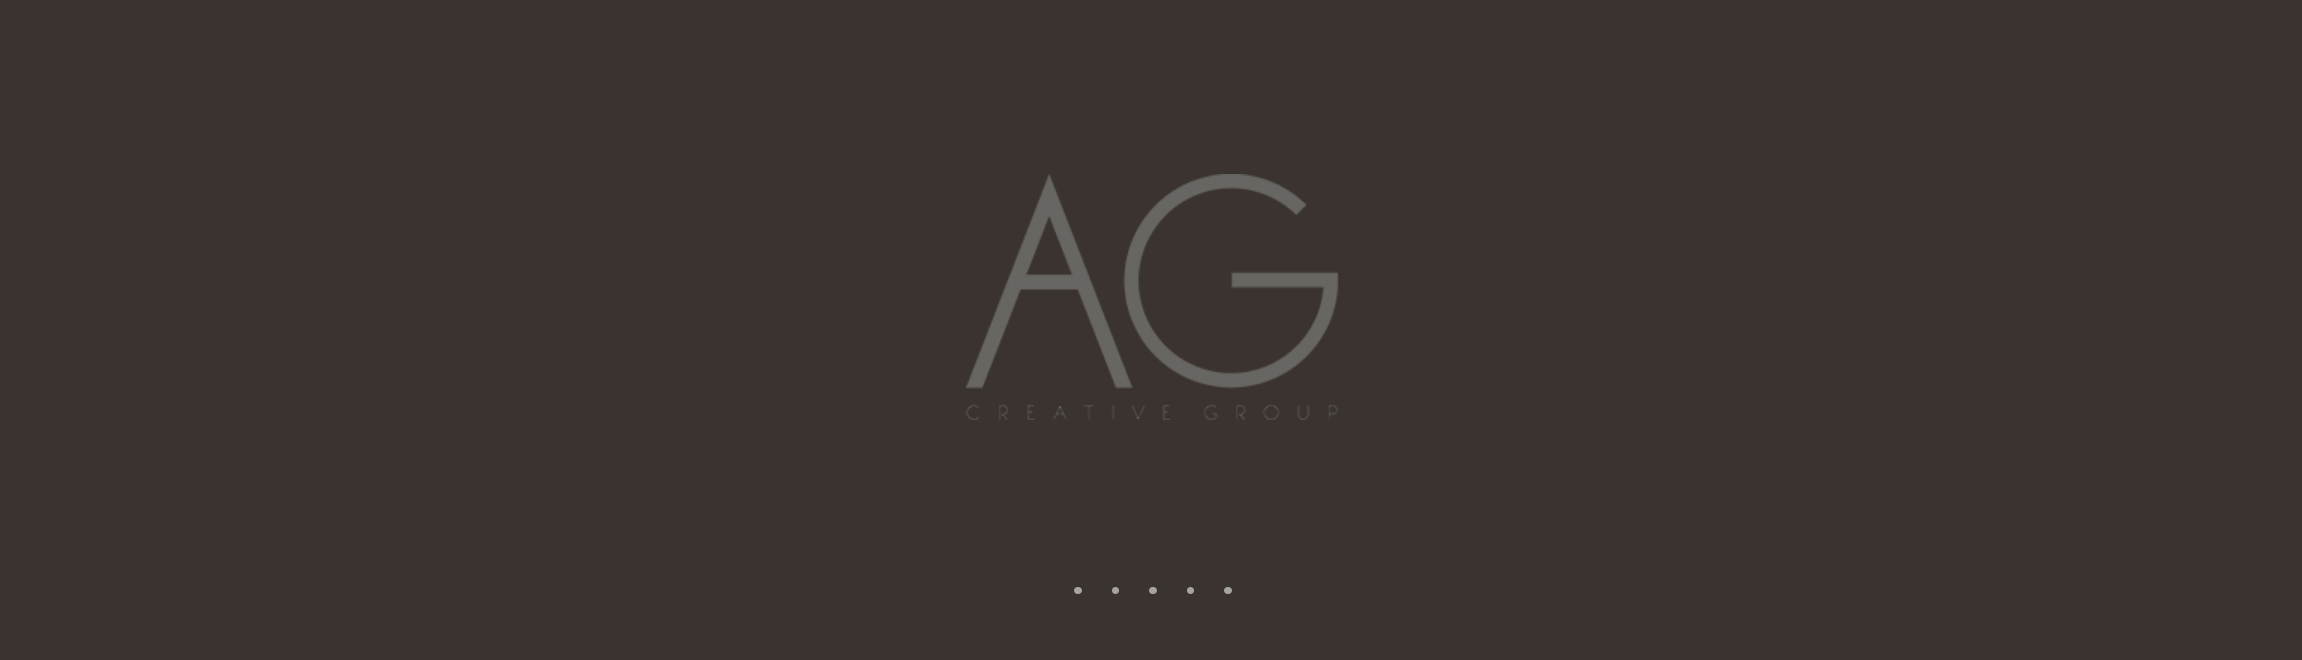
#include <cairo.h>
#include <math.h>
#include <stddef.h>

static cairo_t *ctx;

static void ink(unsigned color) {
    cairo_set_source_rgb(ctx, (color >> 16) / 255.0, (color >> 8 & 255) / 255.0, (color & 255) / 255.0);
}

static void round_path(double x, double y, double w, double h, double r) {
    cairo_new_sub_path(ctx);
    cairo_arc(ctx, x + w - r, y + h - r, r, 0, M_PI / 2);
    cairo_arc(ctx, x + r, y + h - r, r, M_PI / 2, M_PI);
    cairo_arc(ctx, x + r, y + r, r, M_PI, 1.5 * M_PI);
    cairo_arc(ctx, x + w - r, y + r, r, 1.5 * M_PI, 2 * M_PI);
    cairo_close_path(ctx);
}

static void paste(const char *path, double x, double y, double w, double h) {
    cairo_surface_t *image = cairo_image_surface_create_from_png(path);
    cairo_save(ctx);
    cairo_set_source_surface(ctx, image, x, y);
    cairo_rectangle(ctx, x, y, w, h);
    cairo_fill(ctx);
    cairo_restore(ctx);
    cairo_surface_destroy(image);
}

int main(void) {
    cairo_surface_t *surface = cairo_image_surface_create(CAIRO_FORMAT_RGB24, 2302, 660);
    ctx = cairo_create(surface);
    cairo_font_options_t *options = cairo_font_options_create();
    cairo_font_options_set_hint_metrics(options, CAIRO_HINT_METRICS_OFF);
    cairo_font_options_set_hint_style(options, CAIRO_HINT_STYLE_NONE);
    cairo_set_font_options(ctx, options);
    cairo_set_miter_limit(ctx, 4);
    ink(0x3a3330);
    cairo_paint(ctx);
    paste("pic1.png", 965, 174, 374, 246);
    ink(0xa6a4a3);
    round_path(1074, 587, 8, 7, 3.5);
    cairo_fill(ctx);
    cairo_arc(ctx, 1115.5, 590.5, 3.5, 0, 2 * M_PI);
    cairo_fill(ctx);
    round_path(1149, 587, 8, 7, 3.5);
    cairo_fill(ctx);
    cairo_arc(ctx, 1190.5, 590.5, 3.5, 0, 2 * M_PI);
    cairo_fill(ctx);
    round_path(1224, 587, 8, 7, 3.5);
    cairo_fill(ctx);
    cairo_surface_write_to_png(surface, "screenshot.png");
    cairo_font_options_destroy(options);
    cairo_destroy(ctx);
    cairo_surface_destroy(surface);
    return 0;
}
